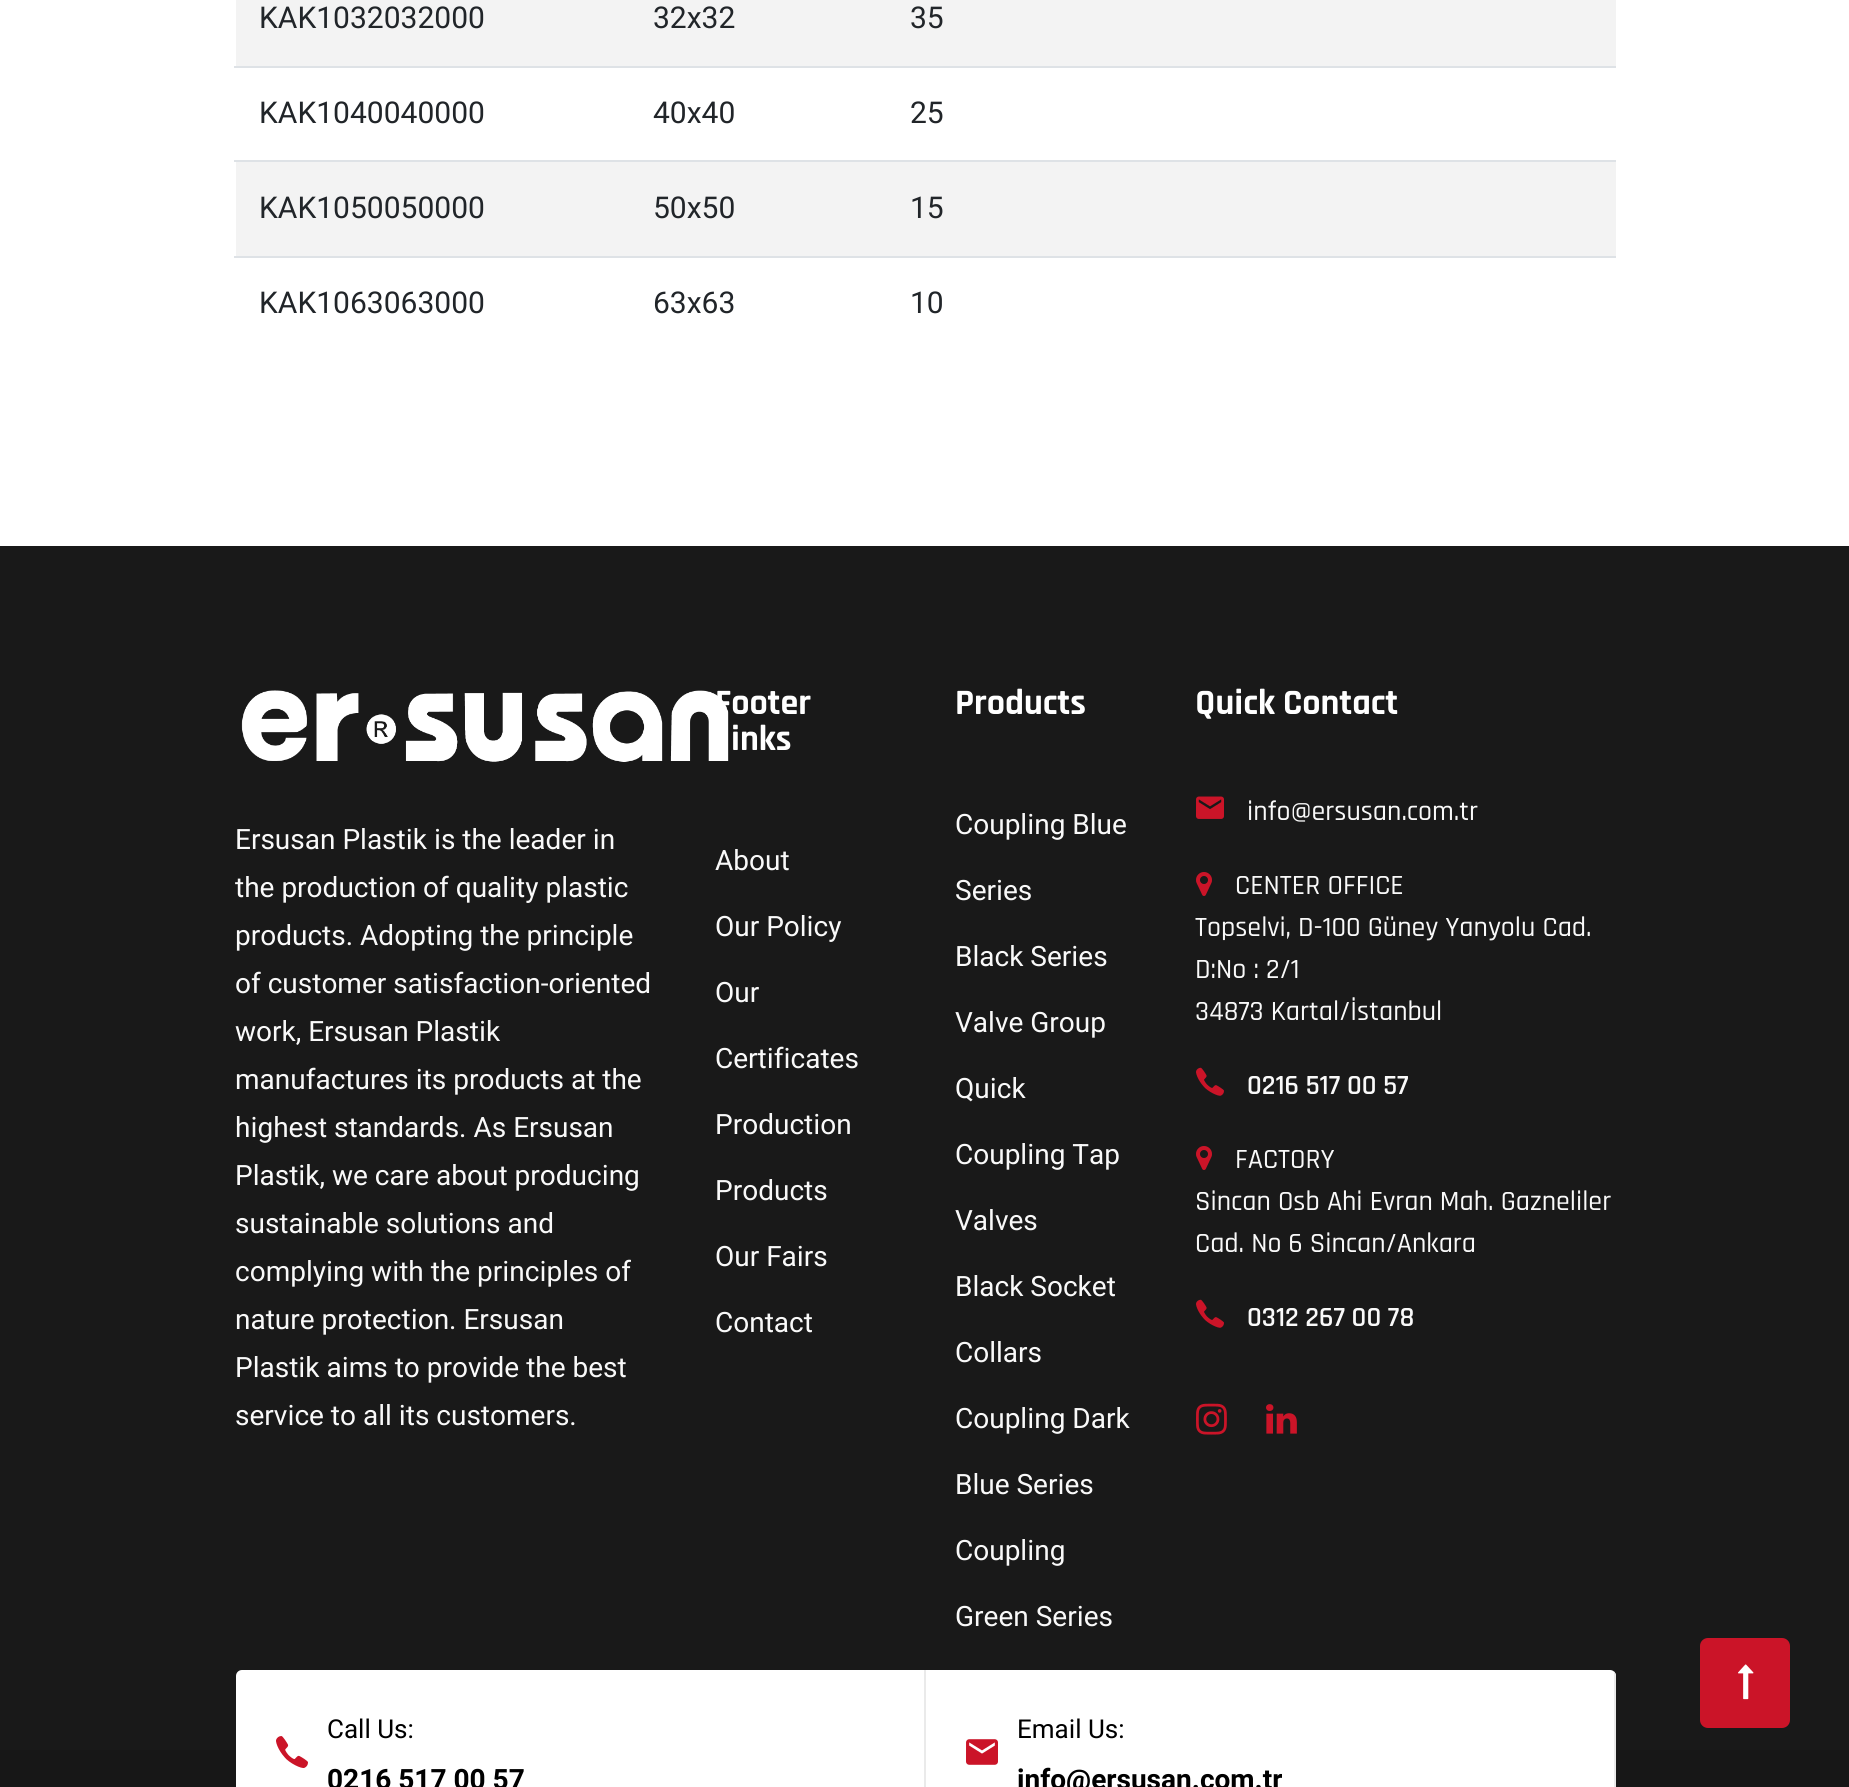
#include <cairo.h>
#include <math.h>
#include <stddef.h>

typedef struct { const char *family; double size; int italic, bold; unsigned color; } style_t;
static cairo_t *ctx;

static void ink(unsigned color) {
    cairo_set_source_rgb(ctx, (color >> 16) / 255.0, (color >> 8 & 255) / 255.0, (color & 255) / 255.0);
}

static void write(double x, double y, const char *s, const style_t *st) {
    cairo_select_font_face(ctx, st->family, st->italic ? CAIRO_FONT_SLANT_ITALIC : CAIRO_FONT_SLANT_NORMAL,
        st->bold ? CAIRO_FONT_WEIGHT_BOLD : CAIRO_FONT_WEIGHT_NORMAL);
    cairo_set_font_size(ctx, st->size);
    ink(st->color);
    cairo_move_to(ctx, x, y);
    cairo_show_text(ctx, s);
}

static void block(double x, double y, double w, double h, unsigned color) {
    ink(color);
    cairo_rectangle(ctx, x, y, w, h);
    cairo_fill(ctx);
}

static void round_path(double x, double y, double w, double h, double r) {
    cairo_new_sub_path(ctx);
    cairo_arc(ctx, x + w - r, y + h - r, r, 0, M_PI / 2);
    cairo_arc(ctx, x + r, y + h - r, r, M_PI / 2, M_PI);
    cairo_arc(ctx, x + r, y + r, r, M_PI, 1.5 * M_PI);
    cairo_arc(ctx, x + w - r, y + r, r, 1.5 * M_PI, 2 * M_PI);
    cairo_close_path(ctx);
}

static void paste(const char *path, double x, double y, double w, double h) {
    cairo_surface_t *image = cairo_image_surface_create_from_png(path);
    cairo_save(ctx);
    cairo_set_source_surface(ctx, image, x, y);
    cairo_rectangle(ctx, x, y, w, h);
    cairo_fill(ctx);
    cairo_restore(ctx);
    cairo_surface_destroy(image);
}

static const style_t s1 = {"Heebo", 30, 0, 0, 0x212529};
static const style_t s2 = {"Heebo", 28, 0, 0, 0xf9f9f9};
static const style_t s3 = {"Rajdhani", 36, 0, 1, 0xffffff};
static const style_t s4 = {"Rajdhani Medium", 28, 0, 0, 0xf9f9f9};
static const style_t s5 = {"Rajdhani SemiBold", 28, 0, 0, 0xf9f9f9};
static const style_t s6 = {"Heebo", 26, 0, 0, 0x000000};
static const style_t s7 = {"Heebo", 28, 0, 1, 0x000000};

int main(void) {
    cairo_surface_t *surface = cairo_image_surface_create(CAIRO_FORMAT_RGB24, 1849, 1787);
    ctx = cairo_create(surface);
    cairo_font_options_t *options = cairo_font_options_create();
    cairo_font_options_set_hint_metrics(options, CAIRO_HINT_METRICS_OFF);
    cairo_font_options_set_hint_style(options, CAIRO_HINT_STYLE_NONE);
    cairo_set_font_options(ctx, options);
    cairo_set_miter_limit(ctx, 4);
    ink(0xffffff);
    cairo_paint(ctx);
    block(236, 0, 1380, 66, 0xf3f3f3);
    write(259, 28, "KAK1032032000", &s1);
    write(653, 28, "32x32", &s1);
    write(910, 28, "35", &s1);
    block(234, 66, 1382, 2, 0xdee2e6);
    write(259, 123, "KAK1040040000", &s1);
    write(653, 123, "40x40", &s1);
    write(910, 123, "25", &s1);
    block(236, 162, 1380, 94, 0xf3f3f3);
    block(234, 160, 1382, 2, 0xdee2e6);
    write(259, 218, "KAK1050050000", &s1);
    write(653, 218, "50x50", &s1);
    write(910, 218, "15", &s1);
    block(234, 256, 1382, 2, 0xdee2e6);
    write(259, 313, "KAK1063063000", &s1);
    write(653, 313, "63x63", &s1);
    write(910, 313, "10", &s1);
    block(0, 546, 1849, 1204, 0x191919);
    paste("pic1.png", 241, 690, 488, 72);
    write(235, 849, "Ersusan Plastik is the leader in", &s2);
    write(235, 897, "the production of quality plastic", &s2);
    write(235, 945, "products. Adopting the principle", &s2);
    write(235, 993, "of customer satisfaction-oriented", &s2);
    write(235, 1041, "work, Ersusan Plastik", &s2);
    write(235, 1089, "manufactures its products at the", &s2);
    write(235, 1137, "highest standards. As Ersusan", &s2);
    write(235, 1185, "Plastik, we care about producing", &s2);
    write(235, 1233, "sustainable solutions and", &s2);
    write(235, 1281, "complying with the principles of", &s2);
    write(235, 1329, "nature protection. Ersusan", &s2);
    write(235, 1377, "Plastik aims to provide the best", &s2);
    write(235, 1425, "service to all its customers.", &s2);
    write(715, 714, "Footer", &s3);
    write(731, 750, "inks", &s3);
    write(715, 870, "About", &s2);
    write(715, 936, "Our Policy", &s2);
    write(715, 1002, "Our", &s2);
    write(715, 1068, "Certificates", &s2);
    write(715, 1134, "Production", &s2);
    write(715, 1200, "Products", &s2);
    write(715, 1266, "Our Fairs", &s2);
    write(715, 1332, "Contact", &s2);
    write(955, 714, "Products", &s3);
    write(955, 834, "Coupling Blue", &s2);
    write(955, 900, "Series", &s2);
    write(955, 966, "Black Series", &s2);
    write(955, 1032, "Valve Group", &s2);
    write(955, 1098, "Quick", &s2);
    write(955, 1164, "Coupling Tap", &s2);
    write(955, 1230, "Valves", &s2);
    write(955, 1296, "Black Socket", &s2);
    write(955, 1362, "Collars", &s2);
    write(955, 1428, "Coupling Dark", &s2);
    write(955, 1494, "Blue Series", &s2);
    write(955, 1560, "Coupling", &s2);
    write(955, 1626, "Green Series", &s2);
    write(1195, 714, "Quick Contact", &s3);
    paste("pic2.png", 1196, 796, 28, 23);
    write(1247, 820, "info@ersusan.com.tr", &s4);
    paste("pic3.png", 1196, 872, 16, 24);
    write(1235, 894, "CENTER OFFICE", &s4);
    write(1195, 936, "Topselvi, D-100 Güney Yanyolu Cad.", &s4);
    write(1195, 978, "D:No : 2/1", &s4);
    write(1195, 1020, "34873 Kartal/İstanbul", &s4);
    paste("pic4.png", 1196, 1067, 28, 29);
    write(1247, 1094, "0216 517 00 57", &s5);
    paste("pic3.png", 1196, 1146, 16, 24);
    write(1235, 1168, "FACTORY", &s4);
    write(1195, 1210, "Sincan Osb Ahi Evran Mah. Gazneliler", &s4);
    write(1195, 1252, "Cad. No 6 Sincan/Ankara", &s4);
    paste("pic4.png", 1196, 1299, 28, 29);
    write(1247, 1326, "0312 267 00 78", &s5);
    paste("pic5.png", 1196, 1403, 31, 32);
    paste("pic6.png", 1266, 1404, 31, 30);
    block(0, 1750, 1849, 37, 0x171717);
    ink(0xffffff);
    round_path(236, 1670, 1380, 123, 6);
    cairo_fill(ctx);
    block(924, 1670, 2, 117, 0xeaeaea);
    paste("pic7.png", 276, 1736, 32, 32);
    write(327, 1738, "Call Us:", &s6);
    write(327, 1789, "0216 517 00 57", &s7);
    cairo_save(ctx);
    round_path(236, 1670, 1380, 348, 6);
    cairo_clip(ctx);
    block(1614, 1670, 2, 117, 0xeaeaea);
    cairo_restore(ctx);
    paste("pic8.png", 966, 1739, 32, 26);
    write(1017, 1738, "Email Us:", &s6);
    write(1017, 1789, "info@ersusan.com.tr", &s7);
    ink(0xcb1428);
    round_path(1700, 1638, 90, 90, 8);
    cairo_fill(ctx);
    paste("pic9.png", 1738, 1664, 16, 36);
    cairo_surface_write_to_png(surface, "screenshot.png");
    cairo_font_options_destroy(options);
    cairo_destroy(ctx);
    cairo_surface_destroy(surface);
    return 0;
}
